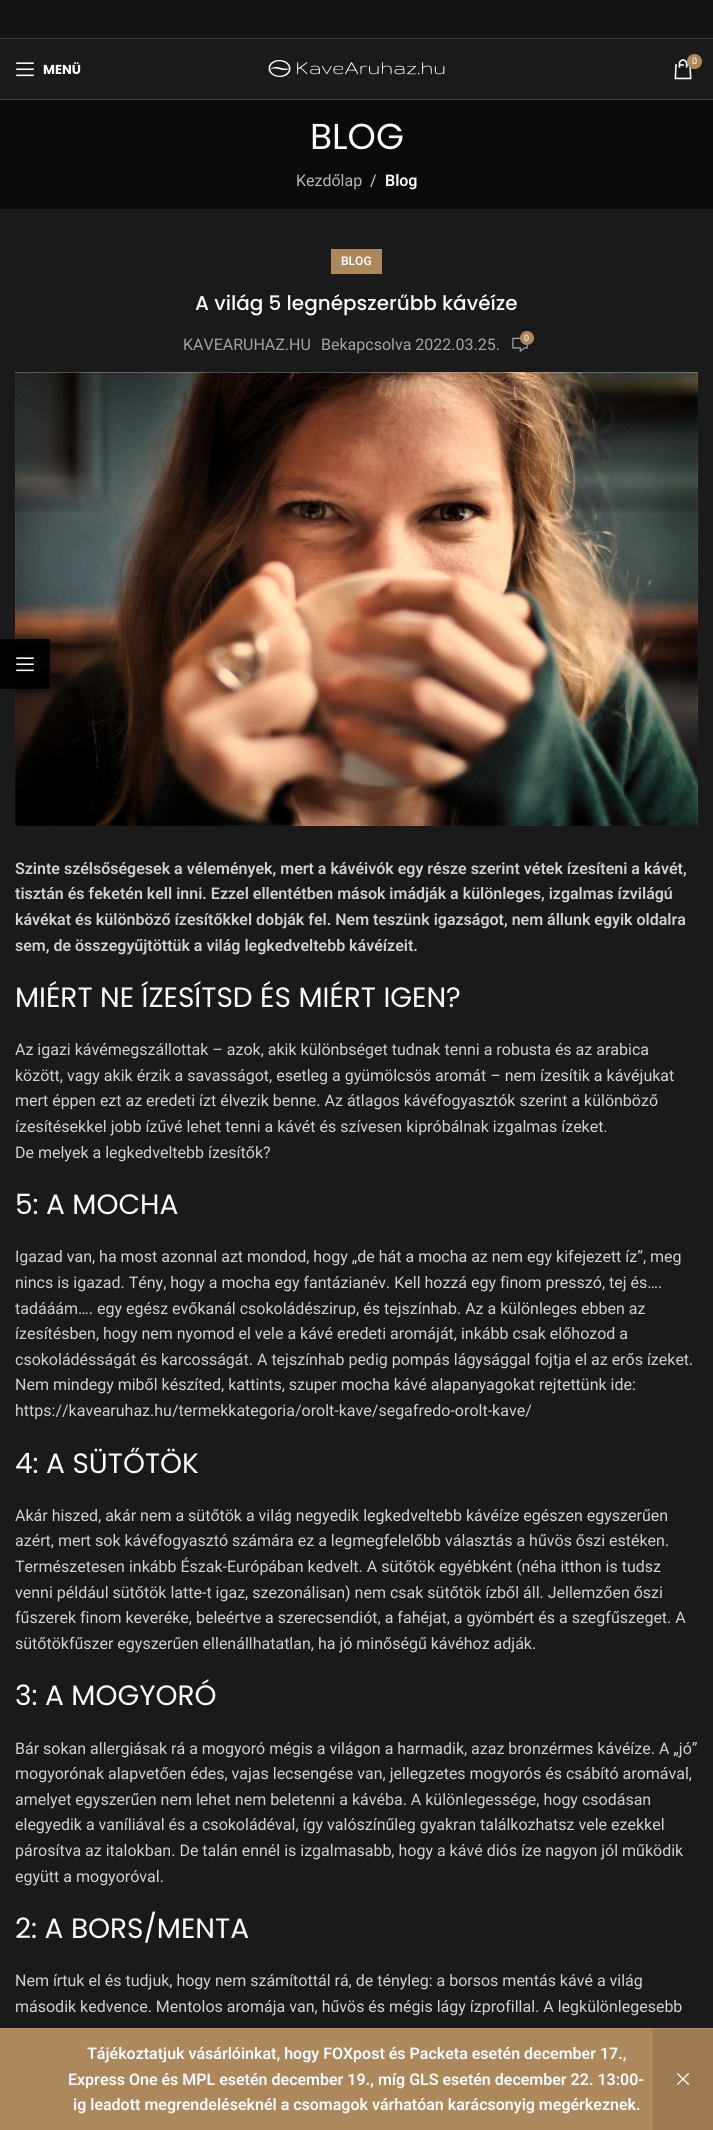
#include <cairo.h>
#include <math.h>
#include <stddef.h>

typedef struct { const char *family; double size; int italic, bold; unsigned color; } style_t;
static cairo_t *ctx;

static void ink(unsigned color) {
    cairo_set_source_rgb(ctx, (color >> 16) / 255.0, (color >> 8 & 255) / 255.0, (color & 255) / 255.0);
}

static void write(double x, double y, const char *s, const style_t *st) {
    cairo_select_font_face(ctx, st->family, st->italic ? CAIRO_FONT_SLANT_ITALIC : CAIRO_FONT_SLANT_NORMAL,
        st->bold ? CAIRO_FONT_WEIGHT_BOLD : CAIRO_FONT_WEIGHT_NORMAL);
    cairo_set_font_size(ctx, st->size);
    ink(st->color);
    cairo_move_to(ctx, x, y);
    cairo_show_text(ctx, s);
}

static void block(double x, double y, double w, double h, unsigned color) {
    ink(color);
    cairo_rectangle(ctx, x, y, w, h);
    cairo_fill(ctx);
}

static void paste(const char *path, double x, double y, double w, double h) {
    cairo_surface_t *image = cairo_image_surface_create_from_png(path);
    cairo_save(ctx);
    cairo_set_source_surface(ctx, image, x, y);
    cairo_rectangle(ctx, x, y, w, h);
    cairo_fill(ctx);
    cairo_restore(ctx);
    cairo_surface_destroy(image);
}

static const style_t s1 = {"Poppins", 13, 0, 1, 0xffffff};
static const style_t s2 = {"Roboto", 9, 0, 0, 0xffffff};
static const style_t s3 = {"Poppins", 36, 0, 0, 0xffffff};
static const style_t s4 = {"Roboto", 16, 0, 0, 0xb6b6b6};
static const style_t s5 = {"Roboto", 16, 0, 0, 0xd1d1d1};
static const style_t s6 = {"Roboto SemiBold", 16, 0, 0, 0xffffff};
static const style_t s7 = {"Roboto SemiBold", 12, 0, 0, 0xffffff};
static const style_t s8 = {"Poppins Medium", 20, 0, 0, 0xffffff};
static const style_t s9 = {"Roboto", 16, 0, 0, 0xa3a3a3};
static const style_t s10 = {"Roboto SemiBold", 16, 0, 0, 0xd1d1d1};
static const style_t s11 = {"Poppins", 28, 0, 0, 0xffffff};

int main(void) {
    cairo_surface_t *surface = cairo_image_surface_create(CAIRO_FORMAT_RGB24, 713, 2130);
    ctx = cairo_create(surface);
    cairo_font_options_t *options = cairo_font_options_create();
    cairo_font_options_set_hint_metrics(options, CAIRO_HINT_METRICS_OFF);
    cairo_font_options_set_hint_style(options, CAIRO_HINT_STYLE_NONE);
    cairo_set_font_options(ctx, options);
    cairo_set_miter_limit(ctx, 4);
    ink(0x1a1a1a);
    cairo_paint(ctx);
    block(0, 0, 713, 38, 0x151515);
    block(0, 38, 713, 1, 0x383838);
    block(0, 99, 713, 1, 0x3c3c3c);
    paste("pic1.png", 16, 62, 18, 15);
    write(43, 74, "MENÜ", &s1);
    paste("pic2.png", 268, 60, 177, 17);
    paste("pic3.png", 674, 59, 18, 21);
    ink(0xae885d);
    cairo_arc(ctx, 694.5, 61.5, 7.5, 0, 2 * M_PI);
    cairo_fill(ctx);
    write(692, 64, "0", &s2);
    block(0, 100, 713, 109, 0x0a0a0a);
    write(310, 149, "BLOG", &s3);
    write(296, 186, "Kezdőlap", &s4);
    write(370, 186, "/", &s5);
    write(385, 186, "Blog", &s6);
    block(331, 249, 51, 25, 0xae885d);
    write(341, 265, "BLOG", &s7);
    write(195, 310, "A világ 5 legnépszerűbb kávéíze", &s8);
    write(183, 350, "KAVEARUHAZ.HU", &s9);
    write(321, 350, "Bekapcsolva 2022.03.25.", &s9);
    paste("pic4.png", 512, 337, 16, 16);
    ink(0xae885d);
    cairo_arc(ctx, 527, 338, 7, 0, 2 * M_PI);
    cairo_fill(ctx);
    write(524, 341, "0", &s2);
    paste("pic5.png", 15, 372, 683, 454);
    write(15, 874, "Szinte szélsőségesek a vélemények, mert a kávéivók egy része szerint vétek ízesíteni a kávét,", &s10);
    write(15, 899, "tisztán és feketén kell inni. Ezzel ellentétben mások imádják a különleges, izgalmas ízvilágú", &s10);
    write(15, 925, "kávékat és különböző ízesítőkkel dobják fel. Nem teszünk igazságot, nem állunk egyik oldalra", &s10);
    write(15, 951, "sem, de összegyűjtöttük a világ legkedveltebb kávéízeit.", &s10);
    write(15, 1007, "MIÉRT NE ÍZESÍTSD ÉS MIÉRT IGEN?", &s11);
    write(15, 1055, "Az igazi kávémegszállottak – azok, akik különbséget tudnak tenni a robusta és az arabica", &s5);
    write(15, 1081, "között, vagy akik érzik a savasságot, esetleg a gyümölcsös aromát – nem ízesítik a kávéjukat", &s5);
    write(15, 1106, "mert éppen ezt az eredeti ízt élvezik benne. Az átlagos kávéfogyasztók szerint a különböző", &s5);
    write(15, 1132, "ízesítésekkel jobb ízűvé lehet tenni a kávét és szívesen kipróbálnak izgalmas ízeket.", &s5);
    write(15, 1158, "De melyek a legkedveltebb ízesítők?", &s5);
    write(15, 1214, "5: A MOCHA", &s11);
    write(15, 1262, "Igazad van, ha most azonnal azt mondod, hogy „de hát a mocha az nem egy kifejezett íz”, meg", &s5);
    write(15, 1288, "nincs is igazad. Tény, hogy a mocha egy fantázianév. Kell hozzá egy finom presszó, tej és….", &s5);
    write(15, 1314, "tadááám…. egy egész evőkanál csokoládészirup, és tejszínhab. Az a különleges ebben az", &s5);
    write(15, 1339, "ízesítésben, hogy nem nyomod el vele a kávé eredeti aromáját, inkább csak előhozod a", &s5);
    write(15, 1365, "csokoládésságát és karcosságát. A tejszínhab pedig pompás lágysággal fojtja el az erős ízeket.", &s5);
    write(15, 1390, "Nem mindegy miből készíted, kattints, szuper mocha kávé alapanyagokat rejtettünk ide:", &s5);
    write(15, 1416, "https://kavearuhaz.hu/termekkategoria/orolt-kave/segafredo-orolt-kave/", &s5);
    write(15, 1473, "4: A SÜTŐTÖK", &s11);
    write(15, 1521, "Akár hiszed, akár nem a sütőtök a világ negyedik legkedveltebb kávéíze egészen egyszerűen", &s5);
    write(15, 1546, "azért, mert sok kávéfogyasztó számára ez a legmegfelelőbb választás a hűvös őszi estéken.", &s5);
    write(15, 1572, "Természetesen inkább Észak-Európában kedvelt. A sütőtök egyébként (néha itthon is tudsz", &s5);
    write(15, 1598, "venni például sütőtök latte-t igaz, szezonálisan) nem csak sütőtök ízből áll. Jellemzően őszi", &s5);
    write(15, 1623, "fűszerek finom keveréke, beleértve a szerecsendiót, a fahéjat, a gyömbért és a szegfűszeget. A", &s5);
    write(15, 1649, "sütőtökfűszer egyszerűen ellenállhatatlan, ha jó minőségű kávéhoz adják.", &s5);
    write(15, 1705, "3: A MOGYORÓ", &s11);
    write(15, 1754, "Bár sokan allergiásak rá a mogyoró mégis a világon a harmadik, azaz bronzérmes kávéíze. A „jó”", &s5);
    write(15, 1779, "mogyorónak alapvetően édes, vajas lecsengése van, jellegzetes mogyorós és csábító aromával,", &s5);
    write(15, 1805, "amelyet egyszerűen nem lehet nem beletenni a kávéba. A különlegessége, hogy csodásan", &s5);
    write(15, 1830, "elegyedik a vaníliával és a csokoládéval, így valószínűleg gyakran találkozhatsz vele ezekkel", &s5);
    write(15, 1856, "párosítva az italokban. De talán ennél is izgalmasabb, hogy a kávé diós íze nagyon jól működik", &s5);
    write(15, 1882, "együtt a mogyoróval.", &s5);
    write(15, 1938, "2: A BORS/MENTA", &s11);
    write(15, 1986, "Nem írtuk el és tudjuk, hogy nem számítottál rá, de tényleg: a borsos mentás kávé a világ", &s5);
    write(15, 2012, "második kedvence. Mentolos aromája van, hűvös és mégis lágy ízprofillal. A legkülönlegesebb", &s5);
    cairo_set_source_rgba(ctx, 0, 0, 0, 0.9);
    cairo_rectangle(ctx, 0, 639, 50, 50);
    cairo_fill(ctx);
    paste("pic6.png", 16, 657, 18, 15);
    block(0, 2029, 653, 101, 0xae885d);
    block(0, 2028, 713, 1, 0xb6946d);
    write(87, 2059, "Tájékoztatjuk vásárlóinkat, hogy FOXpost és Packeta esetén december 17.,", &s6);
    block(653, 2029, 60, 101, 0x9d7a54);
    paste("pic7.png", 676, 2072, 14, 14);
    write(68, 2085, "Express One és MPL esetén december 19., míg GLS esetén december 22. 13:00-", &s6);
    write(73, 2110, "ig leadott megrendeléseknél a csomagok várhatóan karácsonyig megérkeznek.", &s6);
    cairo_surface_write_to_png(surface, "screenshot.png");
    cairo_font_options_destroy(options);
    cairo_destroy(ctx);
    cairo_surface_destroy(surface);
    return 0;
}
